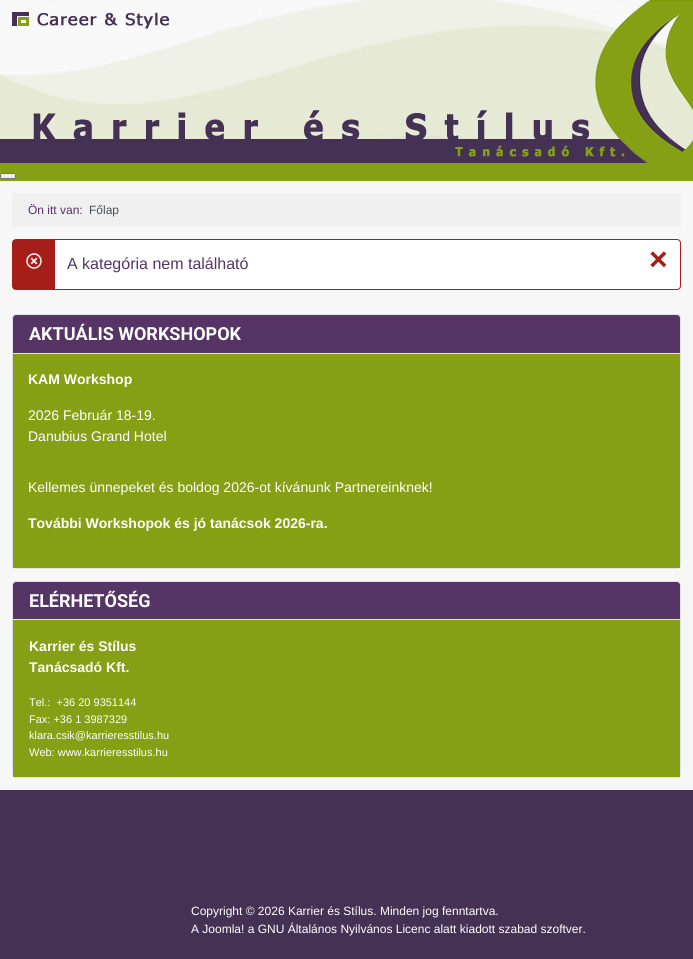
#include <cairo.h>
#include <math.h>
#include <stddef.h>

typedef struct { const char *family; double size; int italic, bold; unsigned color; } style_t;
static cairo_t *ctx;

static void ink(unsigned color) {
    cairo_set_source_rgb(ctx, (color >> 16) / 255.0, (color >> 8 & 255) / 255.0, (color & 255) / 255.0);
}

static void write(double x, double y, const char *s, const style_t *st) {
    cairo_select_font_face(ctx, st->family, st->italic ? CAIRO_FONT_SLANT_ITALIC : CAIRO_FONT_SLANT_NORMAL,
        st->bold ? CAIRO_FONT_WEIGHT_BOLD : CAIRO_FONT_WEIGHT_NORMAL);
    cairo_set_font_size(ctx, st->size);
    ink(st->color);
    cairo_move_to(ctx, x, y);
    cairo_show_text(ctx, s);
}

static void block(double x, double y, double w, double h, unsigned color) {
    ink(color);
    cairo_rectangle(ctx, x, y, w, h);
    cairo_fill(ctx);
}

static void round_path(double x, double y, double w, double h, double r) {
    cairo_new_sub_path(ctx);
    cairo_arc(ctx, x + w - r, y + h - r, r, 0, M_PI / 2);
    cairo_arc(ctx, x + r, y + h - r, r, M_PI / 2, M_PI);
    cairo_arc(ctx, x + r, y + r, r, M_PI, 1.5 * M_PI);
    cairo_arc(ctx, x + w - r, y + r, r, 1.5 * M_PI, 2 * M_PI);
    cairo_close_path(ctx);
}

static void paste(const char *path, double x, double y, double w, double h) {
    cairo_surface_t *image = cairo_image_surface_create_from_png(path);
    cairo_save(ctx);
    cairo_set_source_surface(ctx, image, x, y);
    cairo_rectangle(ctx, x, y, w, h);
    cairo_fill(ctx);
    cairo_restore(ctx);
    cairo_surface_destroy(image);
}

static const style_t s1 = {"Liberation Sans", 12, 0, 0, 0x563466};
static const style_t s2 = {"Liberation Sans", 12, 0, 0, 0x484f56};
static const style_t s3 = {"Liberation Sans", 16, 0, 0, 0x563466};
static const style_t s4 = {"Liberation Sans", 32, 0, 1, 0xa51f18};
static const style_t s5 = {"Roboto", 18, 0, 1, 0xffffff};
static const style_t s6 = {"Liberation Sans", 14, 0, 1, 0xffffff};
static const style_t s7 = {"Liberation Sans", 14, 0, 0, 0xffffff};
static const style_t s8 = {"Liberation Sans", 11, 0, 0, 0xffffff};
static const style_t s9 = {"Liberation Sans", 12, 0, 0, 0xffffff};

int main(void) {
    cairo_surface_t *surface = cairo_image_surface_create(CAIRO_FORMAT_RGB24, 693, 959);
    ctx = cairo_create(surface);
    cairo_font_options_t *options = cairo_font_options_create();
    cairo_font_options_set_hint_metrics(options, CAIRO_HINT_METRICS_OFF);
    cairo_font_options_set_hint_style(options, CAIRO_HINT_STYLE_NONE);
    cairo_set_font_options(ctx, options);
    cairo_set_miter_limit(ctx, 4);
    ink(0x453154);
    cairo_paint(ctx);
    paste("pic1.png", 0, 0, 693, 163);
    block(0, 163, 693, 18, 0x85a015);
    ink(0xefefef);
    round_path(0.5, 173.5, 15, 5, 1.5);
    cairo_fill_preserve(ctx);
    ink(0x767676);
    cairo_set_line_width(ctx, 1);
    cairo_stroke(ctx);
    block(0, 181, 693, 609, 0xf7f7f7);
    block(12, 193, 669, 34, 0xf0f0f0);
    write(28, 214, "Ön itt van:", &s1);
    write(89, 214, "Főlap", &s2);
    ink(0xffffff);
    round_path(12.5, 239.5, 668, 50, 3.5);
    cairo_fill_preserve(ctx);
    ink(0xa51f18);
    cairo_stroke(ctx);
    block(13, 240, 42, 49, 0xa51f18);
    paste("pic2.png", 26, 253, 16, 16);
    write(67, 269, "A kategória nem található", &s3);
    write(649, 270, "×", &s4);
    round_path(12.5, 314.5, 668, 254, 3.5);
    ink(0xdfe3e7);
    cairo_stroke(ctx);
    ink(0x563466);
    cairo_new_path(ctx);
    cairo_move_to(ctx, 16, 315);
    cairo_line_to(ctx, 677, 315);
    cairo_curve_to(ctx, 678.5, 315, 680, 316.5, 680, 318);
    cairo_line_to(ctx, 680, 354);
    cairo_line_to(ctx, 13, 354);
    cairo_line_to(ctx, 13, 318);
    cairo_curve_to(ctx, 13, 316.5, 14.5, 315, 16, 315);
    cairo_close_path(ctx);
    cairo_fill(ctx);
    block(13, 353, 667, 1, 0xdfe3e7);
    write(29, 340, "AKTUÁLIS WORKSHOPOK", &s5);
    block(13, 354, 667, 214, 0x85a015);
    write(28, 384, "KAM Workshop", &s6);
    write(28, 420, "2026 Február 18-19.", &s7);
    write(28, 441, "Danubius Grand Hotel", &s7);
    write(28, 492, "Kellemes ünnepeket és boldog 2026-ot kívánunk Partnereinknek!", &s7);
    write(28, 528, "További Workshopok és jó tanácsok 2026-ra.", &s6);
    round_path(12.5, 581.5, 668, 196, 3.5);
    ink(0xdfe3e7);
    cairo_stroke(ctx);
    ink(0x563466);
    cairo_new_path(ctx);
    cairo_move_to(ctx, 16, 582);
    cairo_line_to(ctx, 677, 582);
    cairo_curve_to(ctx, 678.5, 582, 680, 583.5, 680, 585);
    cairo_line_to(ctx, 680, 620);
    cairo_line_to(ctx, 13, 620);
    cairo_line_to(ctx, 13, 585);
    cairo_curve_to(ctx, 13, 583.5, 14.5, 582, 16, 582);
    cairo_close_path(ctx);
    cairo_fill(ctx);
    block(13, 619, 667, 1, 0xdfe3e7);
    write(29, 607, "ELÉRHETŐSÉG", &s5);
    block(13, 620, 667, 157, 0x85a015);
    write(29, 651, "Karrier és Stílus", &s6);
    write(29, 672, "Tanácsadó Kft.", &s6);
    write(29, 706, "Tel.:  +36 20 9351144", &s8);
    write(29, 723, "Fax: +36 1 3987329", &s8);
    write(29, 739, "klara.csik@karrieresstilus.hu", &s8);
    write(29, 756, "Web: www.karrieresstilus.hu", &s8);
    write(191, 915, "Copyright © 2026 Karrier és Stílus. Minden jog fenntartva.", &s9);
    write(191, 933, "A Joomla! a GNU Általános Nyilvános Licenc alatt kiadott szabad szoftver.", &s9);
    cairo_surface_write_to_png(surface, "screenshot.png");
    cairo_font_options_destroy(options);
    cairo_destroy(ctx);
    cairo_surface_destroy(surface);
    return 0;
}
